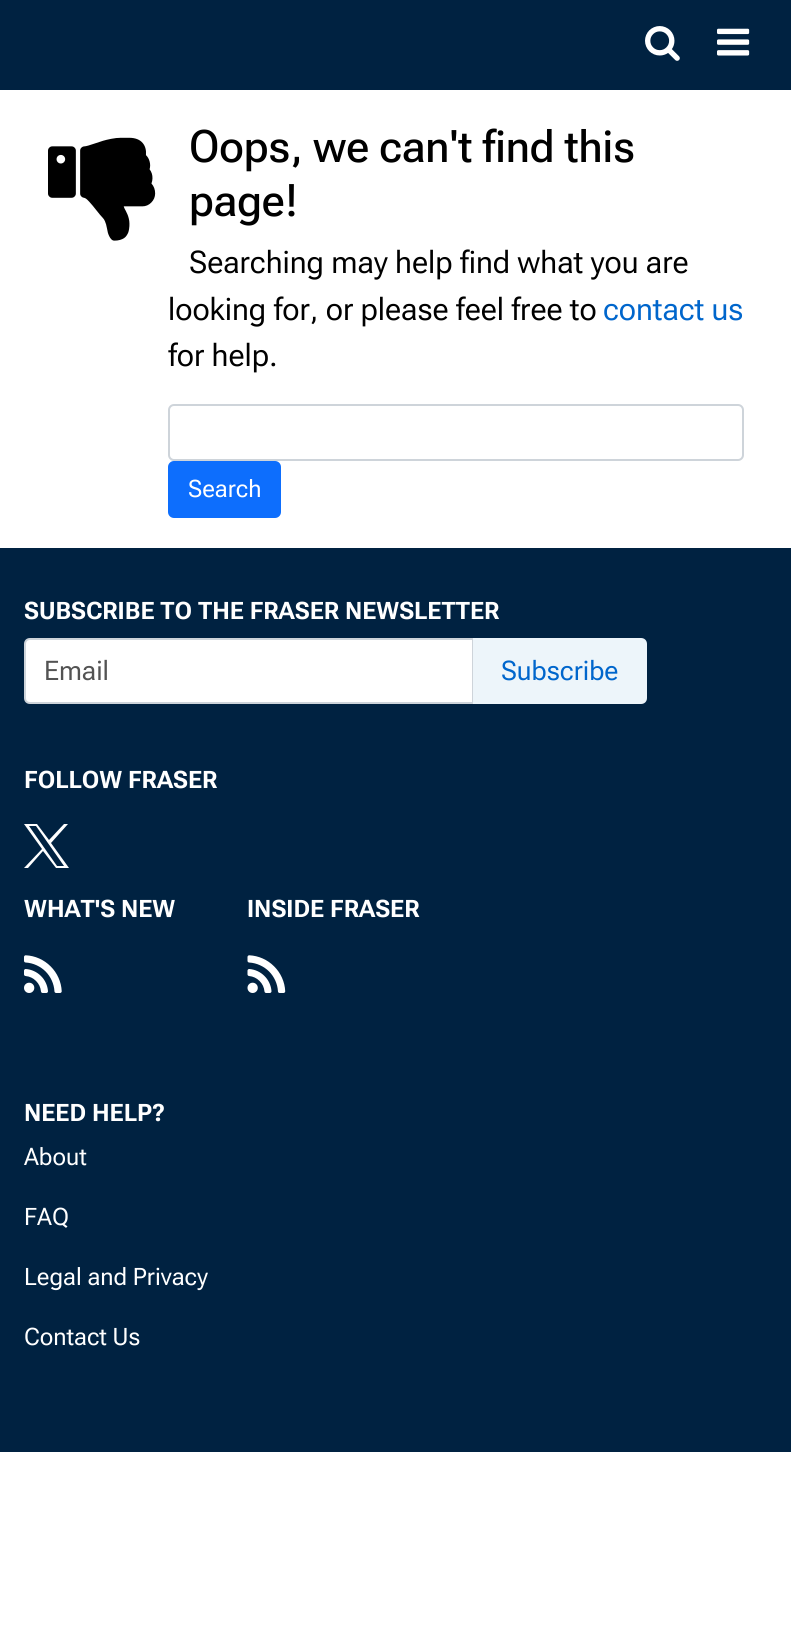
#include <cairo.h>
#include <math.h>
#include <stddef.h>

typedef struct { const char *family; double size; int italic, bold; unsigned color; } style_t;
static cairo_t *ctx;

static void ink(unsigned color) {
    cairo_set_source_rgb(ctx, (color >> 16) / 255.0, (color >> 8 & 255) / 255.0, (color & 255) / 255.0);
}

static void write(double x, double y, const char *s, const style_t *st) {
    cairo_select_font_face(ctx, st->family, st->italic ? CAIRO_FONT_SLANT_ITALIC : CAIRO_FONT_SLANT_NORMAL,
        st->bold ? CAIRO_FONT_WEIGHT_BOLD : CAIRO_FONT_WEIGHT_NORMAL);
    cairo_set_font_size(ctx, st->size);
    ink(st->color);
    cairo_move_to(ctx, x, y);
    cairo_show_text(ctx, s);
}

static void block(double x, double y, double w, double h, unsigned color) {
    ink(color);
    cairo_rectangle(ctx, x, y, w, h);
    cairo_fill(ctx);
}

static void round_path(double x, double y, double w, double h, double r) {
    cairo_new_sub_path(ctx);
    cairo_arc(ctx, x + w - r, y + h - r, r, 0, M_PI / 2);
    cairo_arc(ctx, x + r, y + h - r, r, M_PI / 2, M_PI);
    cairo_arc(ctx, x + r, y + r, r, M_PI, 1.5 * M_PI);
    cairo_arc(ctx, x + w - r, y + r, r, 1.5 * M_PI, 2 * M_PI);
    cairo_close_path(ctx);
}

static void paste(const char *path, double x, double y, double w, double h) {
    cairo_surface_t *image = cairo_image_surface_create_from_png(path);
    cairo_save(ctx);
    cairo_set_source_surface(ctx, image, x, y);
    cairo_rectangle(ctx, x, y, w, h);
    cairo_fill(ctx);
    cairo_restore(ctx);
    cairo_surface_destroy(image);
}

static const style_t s1 = {"Roboto Flex Medium", 44.9, 0, 0, 0x000000};
static const style_t s2 = {"Roboto Flex", 31.25, 0, 0, 0x000000};
static const style_t s3 = {"Roboto Flex", 31.25, 0, 0, 0x0066cc};
static const style_t s4 = {"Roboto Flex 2", 24, 0, 0, 0xffffff};
static const style_t s5 = {"Roboto Flex", 24, 0, 1, 0xffffff};
static const style_t s6 = {"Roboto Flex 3", 27, 0, 0, 0x535353};
static const style_t s7 = {"Roboto Flex 3", 27, 0, 0, 0x0066cc};

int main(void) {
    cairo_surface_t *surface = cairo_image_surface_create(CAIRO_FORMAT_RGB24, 791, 1632);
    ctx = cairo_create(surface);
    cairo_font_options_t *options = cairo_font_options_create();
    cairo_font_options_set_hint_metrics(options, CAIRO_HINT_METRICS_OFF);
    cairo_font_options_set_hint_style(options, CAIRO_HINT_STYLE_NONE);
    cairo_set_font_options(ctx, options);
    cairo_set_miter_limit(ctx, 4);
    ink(0xffffff);
    cairo_paint(ctx);
    block(0, 0, 791, 90, 0x002241);
    paste("pic1.png", 645, 26, 35, 35);
    paste("pic2.png", 717, 28, 33, 28);
    paste("pic3.png", 48, 137, 108, 104);
    write(189, 162, "Oops, we can't find this", &s1);
    write(189, 216, "page!", &s1);
    write(189, 273, "Searching may help find what you are", &s2);
    write(168, 320, "looking for, or please feel free to", &s2);
    write(603, 320, "contact us", &s3);
    write(168, 366, "for help.", &s2);
    round_path(169, 405, 574, 55, 5);
    ink(0xced4da);
    cairo_stroke(ctx);
    ink(0x0d6efd);
    round_path(169, 462, 111, 55, 5);
    cairo_fill_preserve(ctx);
    cairo_stroke(ctx);
    write(188, 497, "Search", &s4);
    block(0, 548, 791, 904, 0x002241);
    write(24, 619, "SUBSCRIBE TO THE FRASER NEWSLETTER", &s5);
    cairo_new_path(ctx);
    cairo_move_to(ctx, 30, 639);
    cairo_line_to(ctx, 473, 639);
    cairo_line_to(ctx, 473, 703);
    cairo_line_to(ctx, 30, 703);
    cairo_curve_to(ctx, 27, 703, 25, 701, 25, 698);
    cairo_line_to(ctx, 25, 644);
    cairo_curve_to(ctx, 25, 641, 27, 639, 30, 639);
    cairo_close_path(ctx);
    cairo_fill_preserve(ctx);
    ink(0xced4da);
    cairo_stroke(ctx);
    write(44, 680, "Email", &s6);
    ink(0xedf5fa);
    cairo_new_path(ctx);
    cairo_move_to(ctx, 473, 638);
    cairo_line_to(ctx, 641, 638);
    cairo_curve_to(ctx, 644.5, 638, 647, 640.5, 647, 644);
    cairo_line_to(ctx, 647, 698);
    cairo_curve_to(ctx, 647, 701.5, 644.5, 704, 641, 704);
    cairo_line_to(ctx, 473, 704);
    cairo_close_path(ctx);
    cairo_fill(ctx);
    write(501, 680, "Subscribe", &s7);
    write(24, 788, "FOLLOW FRASER", &s5);
    cairo_new_path(ctx);
    cairo_move_to(ctx, 29, 826);
    cairo_line_to(ctx, 36, 826);
    cairo_line_to(ctx, 64, 866);
    cairo_line_to(ctx, 57, 866);
    cairo_close_path(ctx);
    cairo_move_to(ctx, 64, 824);
    cairo_line_to(ctx, 49, 840);
    cairo_line_to(ctx, 37, 824);
    cairo_line_to(ctx, 24, 824);
    cairo_line_to(ctx, 42, 849);
    cairo_line_to(ctx, 24, 868);
    cairo_line_to(ctx, 28, 868);
    cairo_line_to(ctx, 43, 851);
    cairo_line_to(ctx, 56, 868);
    cairo_line_to(ctx, 69, 868);
    cairo_line_to(ctx, 51, 843);
    cairo_line_to(ctx, 68, 824);
    cairo_close_path(ctx);
    cairo_fill(ctx);
    write(24, 917, "WHAT'S NEW", &s5);
    paste("pic4.png", 24, 955, 38, 38);
    write(247, 917, "INSIDE FRASER", &s5);
    paste("pic5.png", 247, 955, 39, 38);
    write(24, 1121, "NEED HELP?", &s5);
    write(24, 1165, "About", &s4);
    write(24, 1225, "FAQ", &s4);
    write(24, 1285, "Legal and Privacy", &s4);
    write(24, 1345, "Contact Us", &s4);
    cairo_surface_write_to_png(surface, "screenshot.png");
    cairo_font_options_destroy(options);
    cairo_destroy(ctx);
    cairo_surface_destroy(surface);
    return 0;
}
